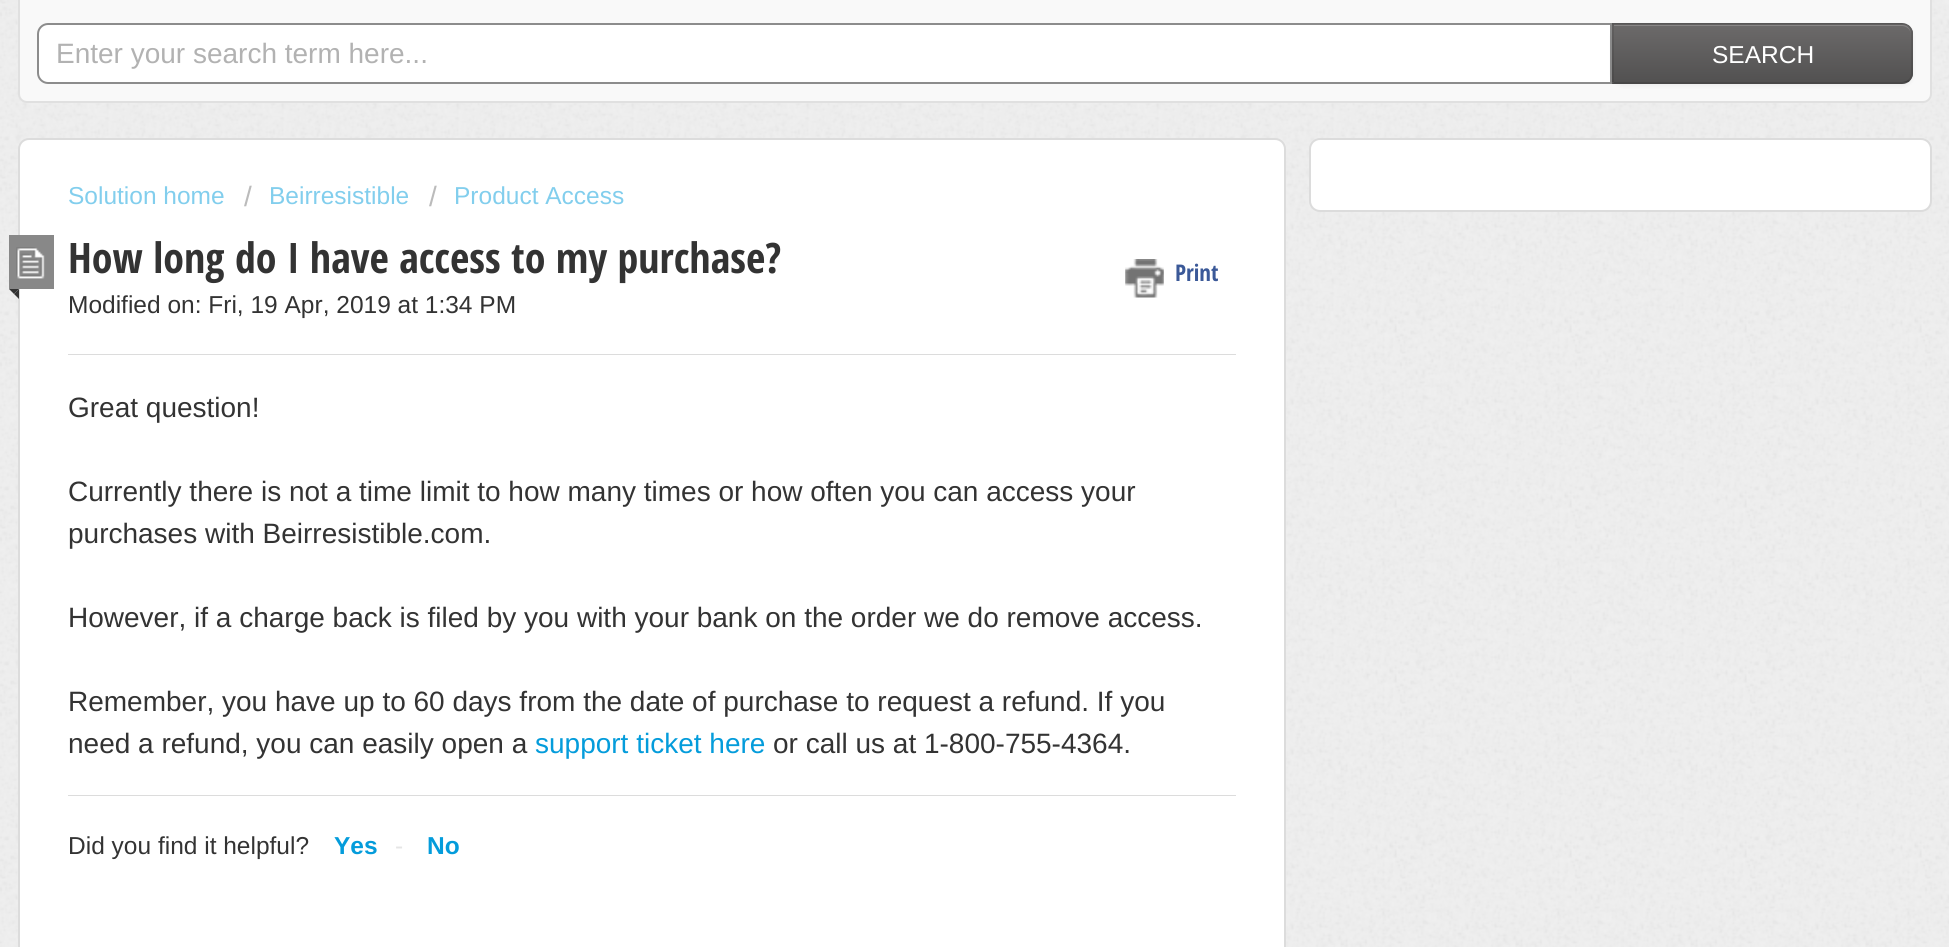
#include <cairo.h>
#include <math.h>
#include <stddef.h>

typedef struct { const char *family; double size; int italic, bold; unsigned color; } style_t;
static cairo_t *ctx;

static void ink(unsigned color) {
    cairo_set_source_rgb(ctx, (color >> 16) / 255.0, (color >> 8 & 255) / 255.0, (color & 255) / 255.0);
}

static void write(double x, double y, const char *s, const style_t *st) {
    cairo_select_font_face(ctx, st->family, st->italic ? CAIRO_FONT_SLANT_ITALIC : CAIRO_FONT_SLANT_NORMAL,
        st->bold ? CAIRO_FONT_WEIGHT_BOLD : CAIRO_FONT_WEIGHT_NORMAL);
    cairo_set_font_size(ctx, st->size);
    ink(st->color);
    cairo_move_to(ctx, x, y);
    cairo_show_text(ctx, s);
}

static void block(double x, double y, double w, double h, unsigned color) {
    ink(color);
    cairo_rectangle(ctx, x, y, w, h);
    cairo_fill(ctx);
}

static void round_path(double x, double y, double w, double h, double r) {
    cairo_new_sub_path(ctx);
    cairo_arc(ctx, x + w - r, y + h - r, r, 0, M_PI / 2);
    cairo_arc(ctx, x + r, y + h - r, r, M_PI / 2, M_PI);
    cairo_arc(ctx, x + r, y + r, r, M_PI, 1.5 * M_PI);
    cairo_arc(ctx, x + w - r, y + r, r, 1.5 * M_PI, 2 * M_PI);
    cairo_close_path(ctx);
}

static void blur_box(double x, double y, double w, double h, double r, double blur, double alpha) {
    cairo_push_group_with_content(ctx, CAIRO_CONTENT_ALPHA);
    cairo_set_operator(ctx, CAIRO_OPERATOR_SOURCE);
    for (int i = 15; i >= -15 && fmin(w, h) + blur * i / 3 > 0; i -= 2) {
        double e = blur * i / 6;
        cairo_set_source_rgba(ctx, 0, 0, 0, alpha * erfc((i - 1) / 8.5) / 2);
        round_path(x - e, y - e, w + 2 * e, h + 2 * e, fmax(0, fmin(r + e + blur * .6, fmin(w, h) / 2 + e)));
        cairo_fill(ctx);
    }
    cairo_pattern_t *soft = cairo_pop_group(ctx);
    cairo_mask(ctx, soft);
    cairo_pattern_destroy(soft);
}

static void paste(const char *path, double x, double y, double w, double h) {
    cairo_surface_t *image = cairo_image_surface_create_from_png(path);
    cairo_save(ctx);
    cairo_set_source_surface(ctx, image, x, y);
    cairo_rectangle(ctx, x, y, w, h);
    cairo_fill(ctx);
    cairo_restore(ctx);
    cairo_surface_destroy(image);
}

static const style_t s1 = {"Liberation Sans", 28, 0, 0, 0xb2b2b2};
static const style_t s2 = {"Liberation Sans", 24.5, 0, 0, 0xffffff};
static const style_t s3 = {"Liberation Sans", 24.5, 0, 0, 0x82ceed};
static const style_t s4 = {"Liberation Sans", 28, 0, 0, 0xbbbbbb};
static const style_t s5 = {"Open Sans Condensed", 42, 0, 1, 0x333333};
static const style_t s6 = {"Open Sans Condensed", 23, 0, 1, 0x3b5998};
static const style_t s7 = {"Liberation Sans", 24.5, 0, 0, 0x333333};
static const style_t s8 = {"Liberation Sans", 28, 0, 0, 0x333333};
static const style_t s9 = {"Liberation Sans", 28, 0, 0, 0x049cdb};
static const style_t s10 = {"Liberation Sans", 24.5, 0, 1, 0x049cdb};
static const style_t s11 = {"Liberation Sans", 24.5, 0, 0, 0xe5e5e5};

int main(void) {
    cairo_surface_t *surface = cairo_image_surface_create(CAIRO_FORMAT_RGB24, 1949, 947);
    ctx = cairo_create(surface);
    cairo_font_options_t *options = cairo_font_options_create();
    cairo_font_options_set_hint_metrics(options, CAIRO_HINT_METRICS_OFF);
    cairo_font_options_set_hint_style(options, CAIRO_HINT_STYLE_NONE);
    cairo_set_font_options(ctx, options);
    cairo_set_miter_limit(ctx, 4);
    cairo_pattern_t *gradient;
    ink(0xefefef);
    cairo_paint(ctx);
    paste("pic1.png", 0, 0, 1949, 947);
    ink(0xf9f9f9);
    round_path(19, -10, 1912, 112, 8);
    cairo_fill_preserve(ctx);
    ink(0xe0e0e0);
    cairo_stroke(ctx);
    ink(0xffffff);
    cairo_new_path(ctx);
    cairo_move_to(ctx, 48, 24);
    cairo_line_to(ctx, 1611, 24);
    cairo_line_to(ctx, 1611, 83);
    cairo_line_to(ctx, 48, 83);
    cairo_curve_to(ctx, 42.5, 83, 38, 78.5, 38, 73);
    cairo_line_to(ctx, 38, 34);
    cairo_curve_to(ctx, 38, 28.5, 42.5, 24, 48, 24);
    cairo_close_path(ctx);
    cairo_fill_preserve(ctx);
    ink(0x8c8c8c);
    cairo_stroke(ctx);
    write(56, 63, "Enter your search term here...", &s1);
    ink(0x000000);
    blur_box(1612, 25, 301, 61, 11, 2, 0.05);
    ink(0x626060);
    cairo_new_path(ctx);
    cairo_move_to(ctx, 1612, 23);
    cairo_line_to(ctx, 1902, 23);
    cairo_curve_to(ctx, 1908, 23, 1913, 28, 1913, 34);
    cairo_line_to(ctx, 1913, 73);
    cairo_curve_to(ctx, 1913, 79, 1908, 84, 1902, 84);
    cairo_line_to(ctx, 1612, 84);
    cairo_close_path(ctx);
    cairo_fill(ctx);
    cairo_save(ctx);
    cairo_new_path(ctx);
    cairo_move_to(ctx, 1612, 23);
    cairo_line_to(ctx, 1902, 23);
    cairo_curve_to(ctx, 1908, 23, 1913, 28, 1913, 34);
    cairo_line_to(ctx, 1913, 73);
    cairo_curve_to(ctx, 1913, 79, 1908, 84, 1902, 84);
    cairo_line_to(ctx, 1612, 84);
    cairo_close_path(ctx);
    cairo_clip(ctx);
    gradient = cairo_pattern_create_linear(1762, 24, 1762, 82);
    cairo_pattern_add_color_stop_rgba(gradient, 0, 0.424, 0.416, 0.416, 1);
    cairo_pattern_add_color_stop_rgba(gradient, 1, 0.322, 0.318, 0.318, 1);
    cairo_set_source(ctx, gradient);
    cairo_pattern_destroy(gradient);
    cairo_rectangle(ctx, 1612, 25, 301, 57);
    cairo_fill(ctx);
    cairo_restore(ctx);
    ink(0x898787);
    cairo_new_path(ctx);
    cairo_move_to(ctx, 1614, 26);
    cairo_line_to(ctx, 1902, 26);
    cairo_curve_to(ctx, 1907, 26, 1911, 30, 1911, 35);
    cairo_curve_to(ctx, 1911, 30, 1908, 25, 1902, 25);
    cairo_line_to(ctx, 1614, 25);
    cairo_close_path(ctx);
    cairo_fill(ctx);
    cairo_set_source_rgba(ctx, 0, 0, 0, 0.1);
    cairo_new_path(ctx);
    cairo_move_to(ctx, 1612, 23);
    cairo_line_to(ctx, 1614, 25);
    cairo_line_to(ctx, 1614, 24);
    cairo_line_to(ctx, 1902, 24);
    cairo_curve_to(ctx, 1905, 24, 1907, 25, 1909, 27);
    cairo_line_to(ctx, 1910, 26);
    cairo_curve_to(ctx, 1908, 24, 1905, 23, 1902, 23);
    cairo_close_path(ctx);
    cairo_fill(ctx);
    cairo_new_path(ctx);
    cairo_move_to(ctx, 1910, 26);
    cairo_curve_to(ctx, 1911, 27, 1912, 29, 1913, 31);
    cairo_line_to(ctx, 1913, 76);
    cairo_curve_to(ctx, 1912, 78, 1911, 80, 1910, 81);
    cairo_line_to(ctx, 1908, 80);
    cairo_curve_to(ctx, 1910, 78, 1911, 76, 1911, 74);
    cairo_line_to(ctx, 1911, 33);
    cairo_curve_to(ctx, 1911, 31, 1910, 28, 1909, 27);
    cairo_close_path(ctx);
    cairo_fill(ctx);
    cairo_set_source_rgba(ctx, 0, 0, 0, 0.25);
    cairo_new_path(ctx);
    cairo_move_to(ctx, 1612, 84);
    cairo_line_to(ctx, 1902, 84);
    cairo_curve_to(ctx, 1905, 84, 1908, 83, 1910, 81);
    cairo_line_to(ctx, 1908, 80);
    cairo_curve_to(ctx, 1907, 81, 1904, 82, 1902, 82);
    cairo_line_to(ctx, 1614, 82);
    cairo_close_path(ctx);
    cairo_fill(ctx);
    cairo_set_source_rgba(ctx, 0, 0, 0, 0.1);
    cairo_new_path(ctx);
    cairo_move_to(ctx, 1612, 23);
    cairo_line_to(ctx, 1612, 84);
    cairo_line_to(ctx, 1614, 82);
    cairo_line_to(ctx, 1614, 25);
    cairo_close_path(ctx);
    cairo_fill(ctx);
    write(1712, 63, "SEARCH", &s2);
    round_path(1310, 139, 621, 72, 10);
    cairo_fill_preserve(ctx);
    ink(0xdcdcdc);
    cairo_stroke(ctx);
    ink(0xffffff);
    round_path(19, 139, 1266, 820, 10);
    cairo_fill_preserve(ctx);
    ink(0xdcdcdc);
    cairo_stroke(ctx);
    write(68, 204, "Solution home", &s3);
    write(244, 206, "/", &s4);
    write(269, 204, "Beirresistible", &s3);
    write(429, 206, "/", &s4);
    write(454, 204, "Product Access", &s3);
    block(9, 235, 45, 54, 0x888888);
    paste("pic2.png", 16, 247, 29, 32);
    ink(0x333333);
    cairo_new_path(ctx);
    cairo_move_to(ctx, 9, 289);
    cairo_line_to(ctx, 19, 289);
    cairo_line_to(ctx, 14, 294);
    cairo_close_path(ctx);
    cairo_fill(ctx);
    cairo_new_path(ctx);
    cairo_move_to(ctx, 19, 289);
    cairo_line_to(ctx, 19, 299);
    cairo_line_to(ctx, 14, 294);
    cairo_close_path(ctx);
    cairo_fill(ctx);
    write(68, 273, "How long do I have access to my purchase?", &s5);
    paste("pic3.png", 1125, 259, 39, 39);
    write(1175, 281, "Print", &s6);
    write(68, 313, "Modified on: Fri, 19 Apr, 2019 at 1:34 PM", &s7);
    block(68, 354, 1168, 1, 0xdcdcdc);
    write(68, 417, "Great question!", &s8);
    write(68, 501, "Currently there is not a time limit to how many times or how often you can access your", &s8);
    write(68, 543, "purchases with Beirresistible.com.", &s8);
    write(68, 627, "However, if a charge back is filed by you with your bank on the order we do remove access.", &s8);
    write(68, 711, "Remember, you have up to 60 days from the date of purchase to request a refund. If you", &s8);
    write(68, 753, "need a refund, you can easily open a", &s8);
    write(535, 753, "support ticket here", &s9);
    write(773, 753, "or call us at 1-800-755-4364.", &s8);
    block(68, 795, 1168, 1, 0xdcdcdc);
    write(68, 854, "Did you find it helpful?", &s7);
    write(334, 854, "Yes", &s10);
    write(395, 854, "-", &s11);
    write(427, 854, "No", &s10);
    cairo_surface_write_to_png(surface, "screenshot.png");
    cairo_font_options_destroy(options);
    cairo_destroy(ctx);
    cairo_surface_destroy(surface);
    return 0;
}
